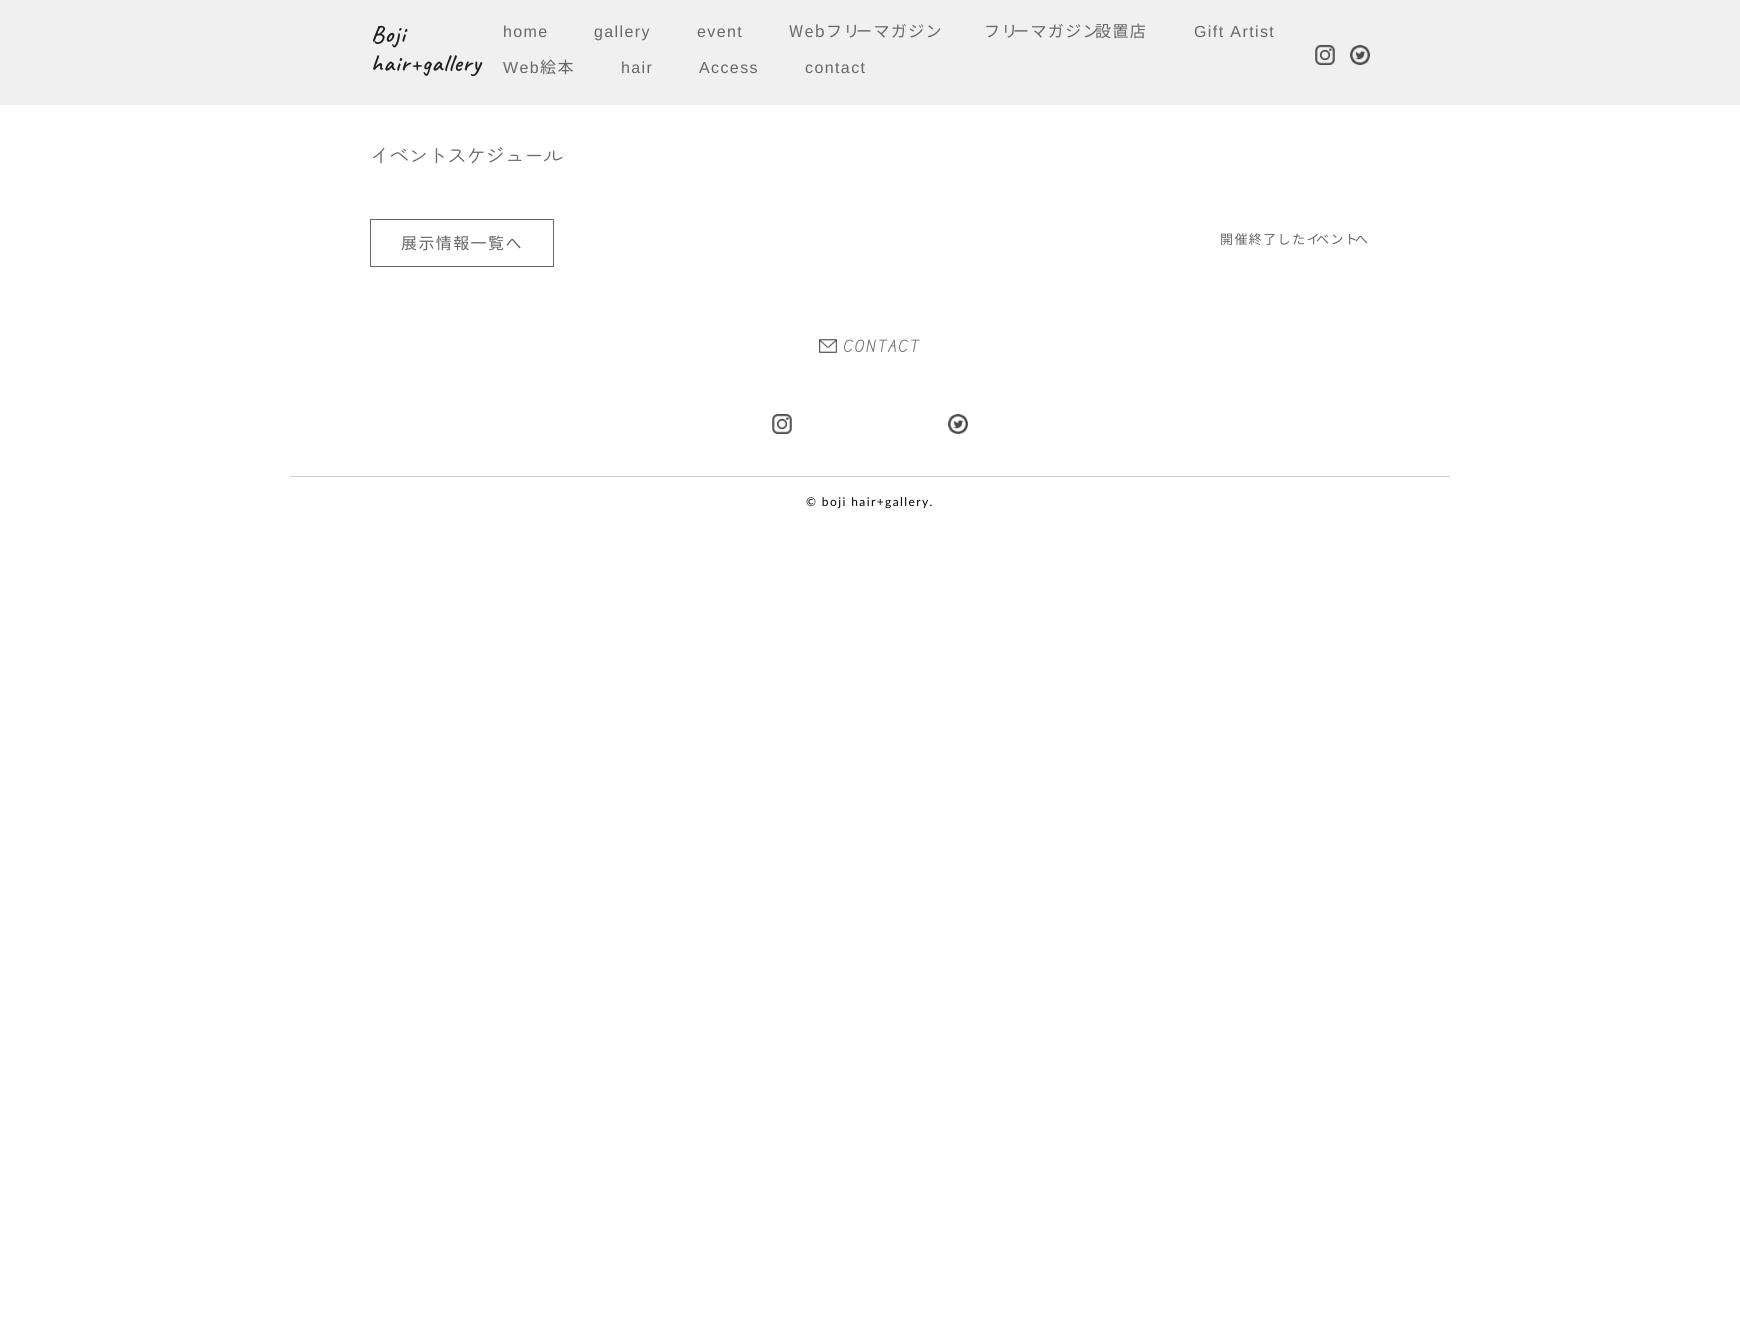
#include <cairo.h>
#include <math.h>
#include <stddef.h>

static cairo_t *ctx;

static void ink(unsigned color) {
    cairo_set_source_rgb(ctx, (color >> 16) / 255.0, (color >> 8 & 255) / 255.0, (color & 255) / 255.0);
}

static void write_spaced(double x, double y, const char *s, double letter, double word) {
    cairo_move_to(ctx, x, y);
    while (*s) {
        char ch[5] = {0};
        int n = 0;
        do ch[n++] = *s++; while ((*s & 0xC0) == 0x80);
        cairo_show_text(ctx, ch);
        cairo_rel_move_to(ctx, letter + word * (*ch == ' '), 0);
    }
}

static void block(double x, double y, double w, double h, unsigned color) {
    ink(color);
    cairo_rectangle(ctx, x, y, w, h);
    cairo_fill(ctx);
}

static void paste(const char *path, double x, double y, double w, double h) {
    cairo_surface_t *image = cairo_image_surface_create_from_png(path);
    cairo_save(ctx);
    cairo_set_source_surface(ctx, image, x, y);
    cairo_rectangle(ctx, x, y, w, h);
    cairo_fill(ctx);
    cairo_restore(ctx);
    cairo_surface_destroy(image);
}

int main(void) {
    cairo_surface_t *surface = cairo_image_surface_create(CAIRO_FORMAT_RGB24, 1740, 1322);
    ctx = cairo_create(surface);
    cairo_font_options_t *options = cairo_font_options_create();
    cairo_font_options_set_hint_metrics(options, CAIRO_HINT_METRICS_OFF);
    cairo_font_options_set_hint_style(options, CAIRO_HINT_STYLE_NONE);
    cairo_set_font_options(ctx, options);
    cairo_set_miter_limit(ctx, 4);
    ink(0xffffff);
    cairo_paint(ctx);
    block(0, 0, 1740, 105, 0xf0f0f0);
    cairo_select_font_face(ctx, "Caveat SemiBold", CAIRO_FONT_SLANT_NORMAL, CAIRO_FONT_WEIGHT_NORMAL);
    cairo_set_font_size(ctx, 24);
    ink(0x1c1c1c);
    write_spaced(371, 42, "Boji", 1, 0);
    write_spaced(371, 71, "hair+gallery", 1, 0);
    cairo_select_font_face(ctx, "Liberation Sans", CAIRO_FONT_SLANT_NORMAL, CAIRO_FONT_WEIGHT_NORMAL);
    cairo_set_font_size(ctx, 16);
    ink(0x666666);
    write_spaced(503, 37, "home", 1.4, 0);
    write_spaced(594, 37, "gallery", 1.4, 0);
    write_spaced(697, 37, "event", 1.4, 0);
    cairo_select_font_face(ctx, "Noto Sans JP", CAIRO_FONT_SLANT_NORMAL, CAIRO_FONT_WEIGHT_NORMAL);
    write_spaced(789, 37, "Webフリ", 1.4, 0);
    write_spaced(856, 37, "ーマガジン", 1.4, 0);
    write_spaced(984, 37, "フリ", 1.4, 0);
    write_spaced(1013, 37, "ーマガジン", 1.4, 0);
    write_spaced(1095, 37, "設置店", 1.4, 0);
    cairo_select_font_face(ctx, "Liberation Sans", CAIRO_FONT_SLANT_NORMAL, CAIRO_FONT_WEIGHT_NORMAL);
    write_spaced(1194, 37, "Gift Artist", 1.4, 0);
    write_spaced(503, 73, "Web", 1.4, 0);
    cairo_select_font_face(ctx, "Noto Sans JP", CAIRO_FONT_SLANT_NORMAL, CAIRO_FONT_WEIGHT_NORMAL);
    write_spaced(540, 73, "絵本", 1.4, 0);
    cairo_select_font_face(ctx, "Liberation Sans", CAIRO_FONT_SLANT_NORMAL, CAIRO_FONT_WEIGHT_NORMAL);
    write_spaced(621, 73, "hair", 1.4, 0);
    write_spaced(699, 73, "Access", 1.4, 0);
    write_spaced(805, 73, "contact", 1.4, 0);
    paste("pic1.png", 1315, 45, 20, 20);
    paste("pic2.png", 1350, 45, 20, 20);
    cairo_select_font_face(ctx, "Zen Maru Gothic", CAIRO_FONT_SLANT_NORMAL, CAIRO_FONT_WEIGHT_NORMAL);
    cairo_set_font_size(ctx, 20);
    write_spaced(370, 163, "イベントスケジュール", -0.75, 0);
    cairo_rectangle(ctx, 370.5, 219.5, 183, 47);
    cairo_set_line_width(ctx, 1);
    cairo_stroke(ctx);
    cairo_select_font_face(ctx, "Noto Sans JP", CAIRO_FONT_SLANT_NORMAL, CAIRO_FONT_WEIGHT_NORMAL);
    cairo_set_font_size(ctx, 16);
    write_spaced(401, 249, "展示情報一覧へ", 1.4, 0);
    cairo_set_font_size(ctx, 13);
    write_spaced(1220, 244, "開催終了したイ", 1.4, 0);
    write_spaced(1316, 244, "ベント", 1.4, 0);
    write_spaced(1355, 244, "へ", 1.4, 0);
    paste("pic3.png", 819, 339, 18, 14);
    cairo_select_font_face(ctx, "Edu VIC WA NT Beginner", CAIRO_FONT_SLANT_NORMAL, CAIRO_FONT_WEIGHT_NORMAL);
    cairo_set_font_size(ctx, 16);
    write_spaced(843, 352, "CONTACT", 1.4, 0);
    paste("pic4.png", 772, 414, 20, 20);
    paste("pic5.png", 948, 414, 20, 20);
    block(290, 476, 1160, 1, 0xcccccc);
    cairo_select_font_face(ctx, "Lato", CAIRO_FONT_SLANT_NORMAL, CAIRO_FONT_WEIGHT_NORMAL);
    cairo_set_font_size(ctx, 12);
    ink(0x000000);
    write_spaced(806, 506, "© boji hair+gallery.", 1.4, 0);
    cairo_surface_write_to_png(surface, "screenshot.png");
    cairo_font_options_destroy(options);
    cairo_destroy(ctx);
    cairo_surface_destroy(surface);
    return 0;
}
